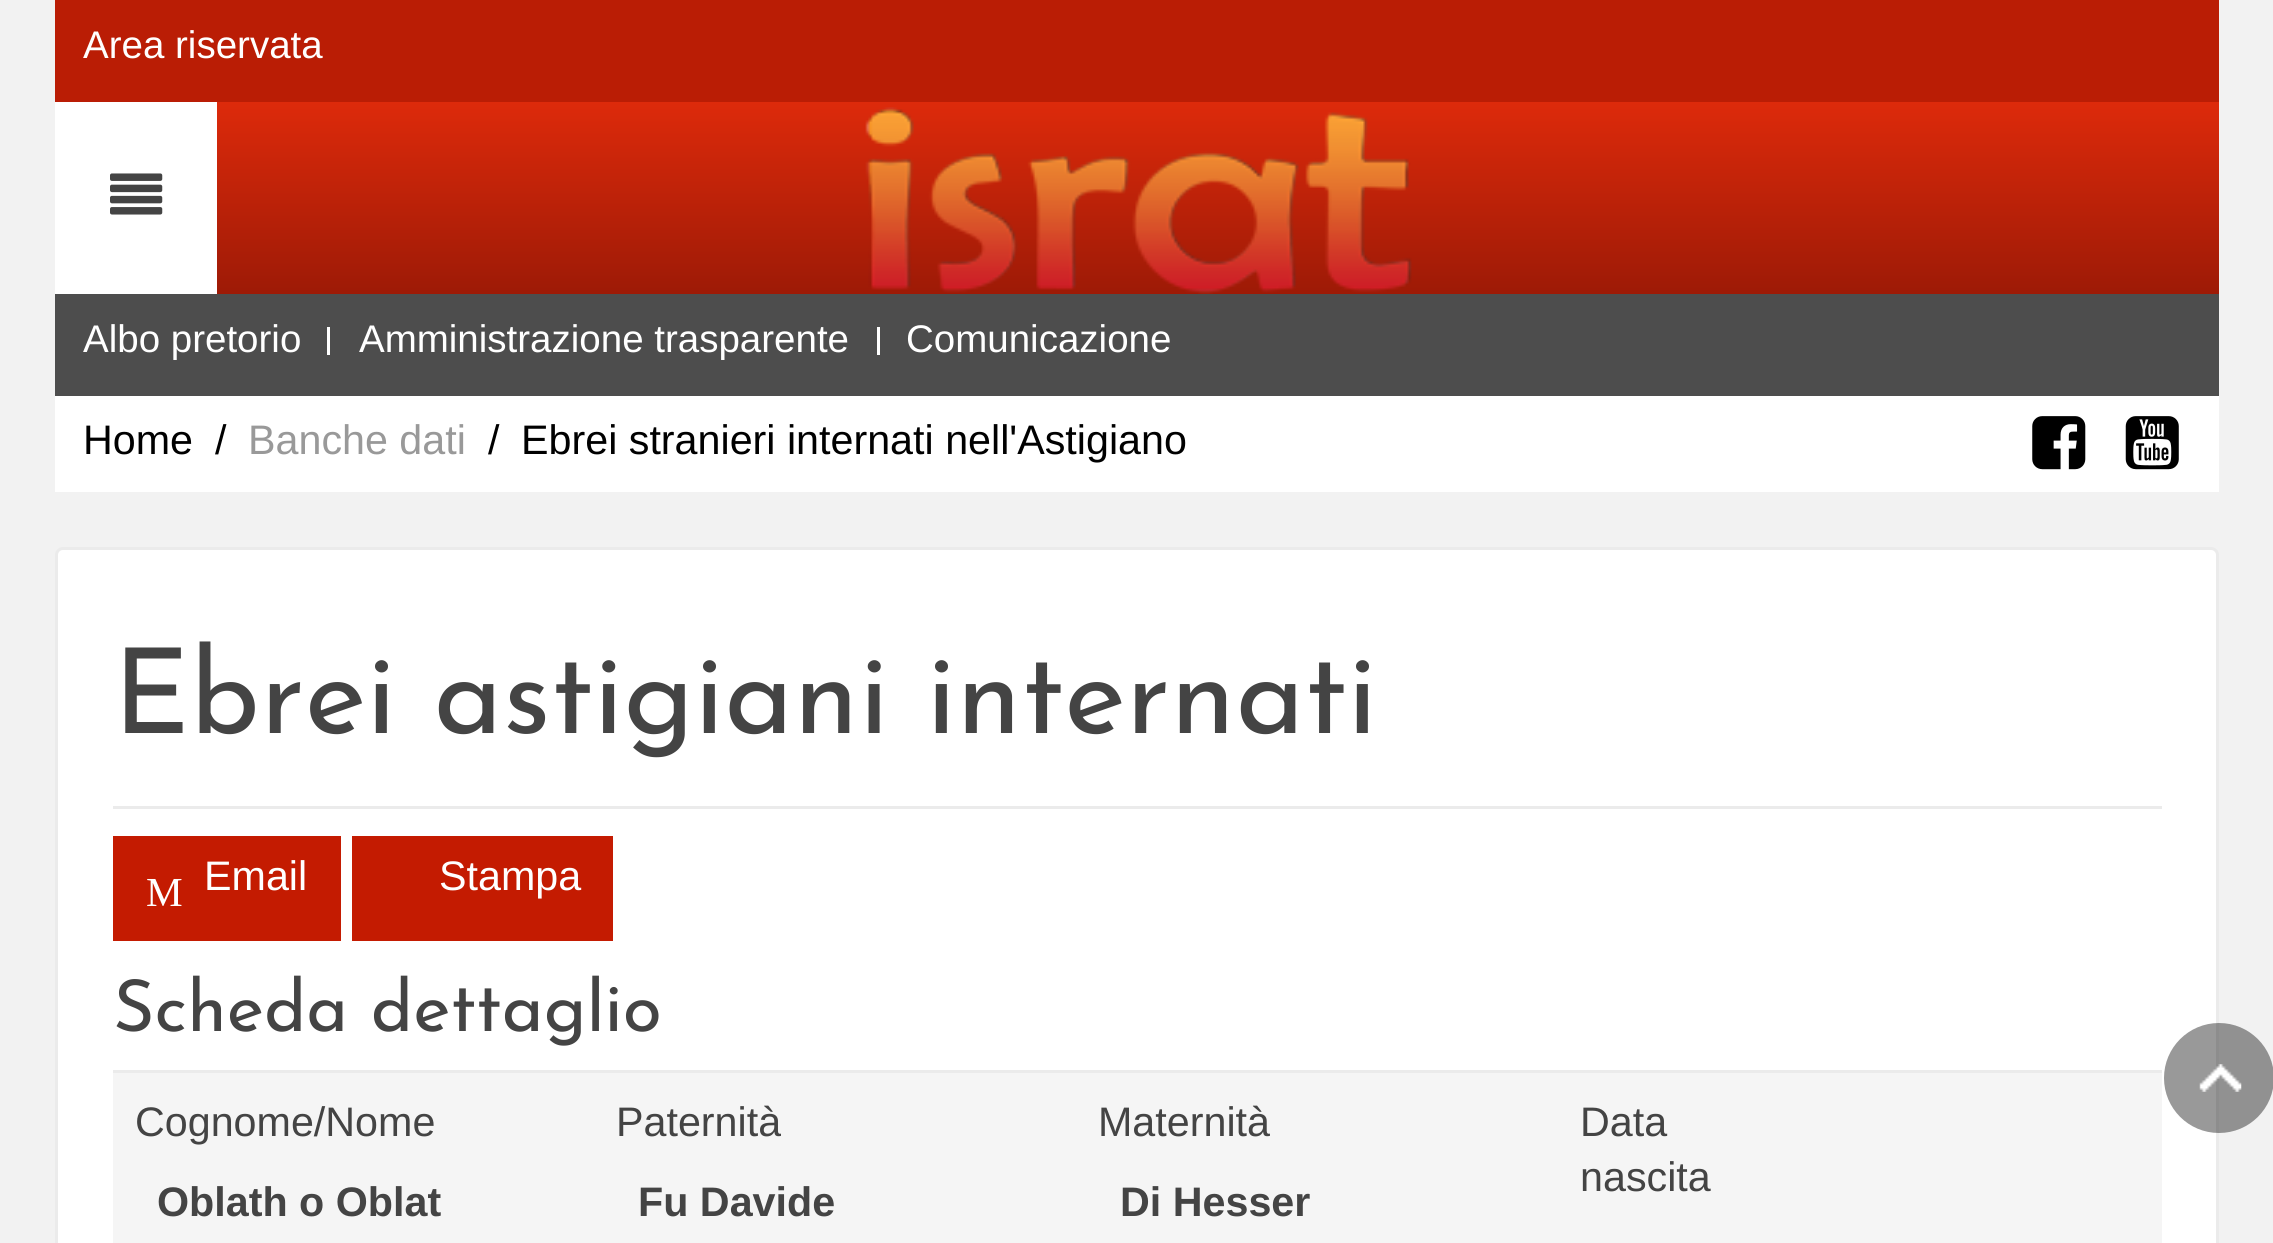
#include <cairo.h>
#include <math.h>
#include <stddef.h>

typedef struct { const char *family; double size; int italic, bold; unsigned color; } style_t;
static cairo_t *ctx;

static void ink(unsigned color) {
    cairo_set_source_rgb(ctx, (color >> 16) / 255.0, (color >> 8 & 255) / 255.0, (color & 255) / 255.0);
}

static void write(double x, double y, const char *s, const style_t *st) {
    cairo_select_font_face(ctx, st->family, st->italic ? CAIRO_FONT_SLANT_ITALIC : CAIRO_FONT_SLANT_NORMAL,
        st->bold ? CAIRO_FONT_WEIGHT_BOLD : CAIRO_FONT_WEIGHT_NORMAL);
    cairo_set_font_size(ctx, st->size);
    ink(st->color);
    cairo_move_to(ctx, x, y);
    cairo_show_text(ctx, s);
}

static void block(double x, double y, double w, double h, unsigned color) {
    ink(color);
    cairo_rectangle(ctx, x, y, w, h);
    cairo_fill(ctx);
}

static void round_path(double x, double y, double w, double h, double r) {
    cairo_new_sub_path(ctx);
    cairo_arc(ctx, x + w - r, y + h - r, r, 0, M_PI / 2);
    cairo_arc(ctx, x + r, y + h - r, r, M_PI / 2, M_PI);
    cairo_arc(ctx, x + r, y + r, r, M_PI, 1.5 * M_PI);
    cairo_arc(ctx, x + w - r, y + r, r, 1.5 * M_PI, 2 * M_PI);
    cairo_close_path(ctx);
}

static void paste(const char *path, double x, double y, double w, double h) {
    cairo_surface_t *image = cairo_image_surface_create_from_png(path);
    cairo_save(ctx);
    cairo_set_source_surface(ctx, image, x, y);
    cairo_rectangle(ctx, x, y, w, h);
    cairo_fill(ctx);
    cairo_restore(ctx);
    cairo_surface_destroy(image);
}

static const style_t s1 = {"Liberation Sans", 38.5, 0, 0, 0xffffff};
static const style_t s2 = {"Liberation Sans", 41.25, 0, 0, 0x000000};
static const style_t s3 = {"Liberation Sans", 41.25, 0, 0, 0x999999};
static const style_t s4 = {"Josefin Sans Thin", 118.25, 0, 0, 0x444444};
static const style_t s5 = {"Liberation Serif", 41.25, 0, 0, 0xffffff};
static const style_t s6 = {"Liberation Sans", 41.25, 0, 0, 0xffffff};
static const style_t s7 = {"Josefin Sans Thin", 71.5, 0, 0, 0x444444};
static const style_t s8 = {"Liberation Sans", 41.25, 0, 0, 0x444444};
static const style_t s9 = {"Liberation Sans", 41.25, 0, 1, 0x444444};

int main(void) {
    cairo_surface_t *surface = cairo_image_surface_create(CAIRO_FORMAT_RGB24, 2273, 1243);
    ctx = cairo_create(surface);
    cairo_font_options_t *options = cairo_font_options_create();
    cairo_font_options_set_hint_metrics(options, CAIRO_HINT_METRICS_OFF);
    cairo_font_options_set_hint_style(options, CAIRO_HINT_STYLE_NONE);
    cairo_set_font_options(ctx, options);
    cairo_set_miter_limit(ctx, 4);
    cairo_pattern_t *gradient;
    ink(0xf2f2f2);
    cairo_paint(ctx);
    block(55, 0, 2164, 102, 0xba1d05);
    write(83, 58, "Area riservata", &s1);
    gradient = cairo_pattern_create_linear(1137, 102, 1137, 294);
    cairo_pattern_add_color_stop_rgba(gradient, 0, 0.867, 0.165, 0.043, 1);
    cairo_pattern_add_color_stop_rgba(gradient, 1, 0.616, 0.102, 0.024, 1);
    cairo_set_source(ctx, gradient);
    cairo_pattern_destroy(gradient);
    cairo_rectangle(ctx, 217, 102, 2002, 192);
    cairo_fill(ctx);
    block(55, 102, 162, 192, 0xffffff);
    paste("pic1.png", 110, 173, 53, 42);
    paste("pic2.png", 865, 107, 547, 187);
    block(55, 294, 2164, 102, 0x4d4d4d);
    write(83, 352, "Albo pretorio", &s1);
    block(327, 327, 3, 28, 0xffffff);
    write(359, 352, "Amministrazione trasparente", &s1);
    block(877, 327, 3, 28, 0xffffff);
    write(906, 352, "Comunicazione", &s1);
    block(55, 396, 2164, 96, 0xffffff);
    write(83, 454, "Home", &s2);
    write(215, 454, "/", &s2);
    write(248, 454, "Banche dati", &s3);
    write(488, 454, "/", &s2);
    write(521, 454, "Ebrei stranieri internati nell'Astigiano", &s2);
    paste("pic3.png", 2032, 416, 54, 54);
    paste("pic4.png", 2125, 416, 54, 54);
    ink(0xffffff);
    round_path(55, 547, 2164, 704, 8);
    cairo_fill(ctx);
    round_path(56.5, 548.5, 2161, 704, 6.5);
    cairo_set_source_rgba(ctx, 0, 0, 0, 0.08);
    cairo_set_line_width(ctx, 3);
    cairo_stroke(ctx);
    block(113, 806, 2049, 3, 0xebebeb);
    write(113, 733, "Ebrei astigiani internati", &s4);
    block(113, 836, 228, 105, 0xc41b01);
    write(146, 906, "M", &s5);
    write(204, 890, "Email", &s6);
    block(352, 836, 261, 105, 0xc41b01);
    write(439, 890, "Stampa", &s6);
    write(113, 1031, "Scheda dettaglio", &s7);
    block(113, 1070, 2049, 3, 0xebebeb);
    block(113, 1073, 2049, 170, 0xf5f5f5);
    write(135, 1136, "Cognome/Nome", &s8);
    write(157, 1216, "Oblath o Oblat", &s9);
    write(616, 1136, "Paternità", &s8);
    write(638, 1216, "Fu Davide", &s9);
    write(1098, 1136, "Maternità", &s8);
    write(1120, 1216, "Di Hesser", &s9);
    write(1580, 1136, "Data", &s8);
    write(1580, 1191, "nascita", &s8);
    cairo_set_source_rgba(ctx, 0, 0, 0, 0.4);
    cairo_new_path(ctx);
    cairo_arc(ctx, 2219, 1078, 55, 0, 2 * M_PI);
    cairo_fill(ctx);
    paste("pic5.png", 2199, 1064, 43, 28);
    cairo_surface_write_to_png(surface, "screenshot.png");
    cairo_font_options_destroy(options);
    cairo_destroy(ctx);
    cairo_surface_destroy(surface);
    return 0;
}
